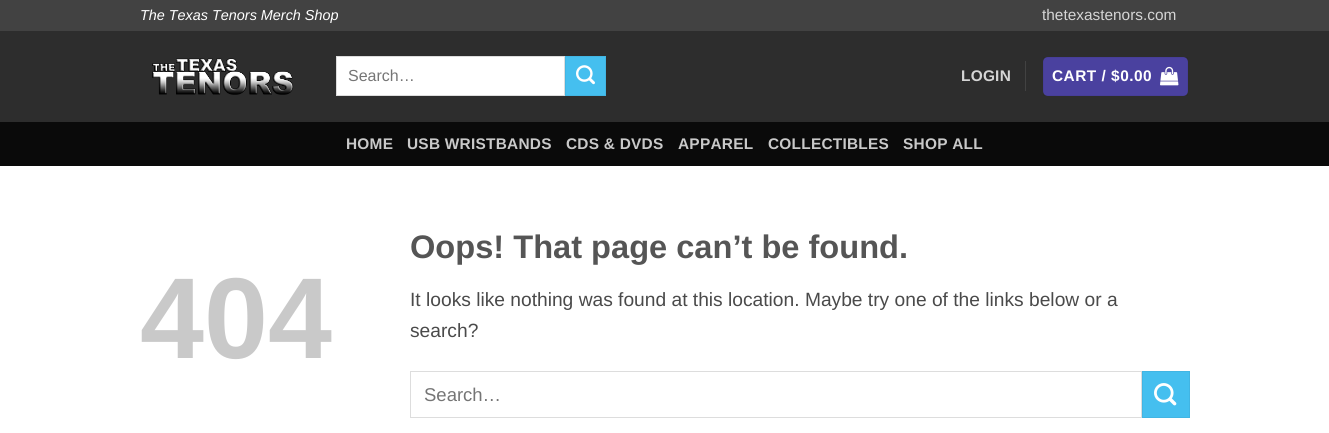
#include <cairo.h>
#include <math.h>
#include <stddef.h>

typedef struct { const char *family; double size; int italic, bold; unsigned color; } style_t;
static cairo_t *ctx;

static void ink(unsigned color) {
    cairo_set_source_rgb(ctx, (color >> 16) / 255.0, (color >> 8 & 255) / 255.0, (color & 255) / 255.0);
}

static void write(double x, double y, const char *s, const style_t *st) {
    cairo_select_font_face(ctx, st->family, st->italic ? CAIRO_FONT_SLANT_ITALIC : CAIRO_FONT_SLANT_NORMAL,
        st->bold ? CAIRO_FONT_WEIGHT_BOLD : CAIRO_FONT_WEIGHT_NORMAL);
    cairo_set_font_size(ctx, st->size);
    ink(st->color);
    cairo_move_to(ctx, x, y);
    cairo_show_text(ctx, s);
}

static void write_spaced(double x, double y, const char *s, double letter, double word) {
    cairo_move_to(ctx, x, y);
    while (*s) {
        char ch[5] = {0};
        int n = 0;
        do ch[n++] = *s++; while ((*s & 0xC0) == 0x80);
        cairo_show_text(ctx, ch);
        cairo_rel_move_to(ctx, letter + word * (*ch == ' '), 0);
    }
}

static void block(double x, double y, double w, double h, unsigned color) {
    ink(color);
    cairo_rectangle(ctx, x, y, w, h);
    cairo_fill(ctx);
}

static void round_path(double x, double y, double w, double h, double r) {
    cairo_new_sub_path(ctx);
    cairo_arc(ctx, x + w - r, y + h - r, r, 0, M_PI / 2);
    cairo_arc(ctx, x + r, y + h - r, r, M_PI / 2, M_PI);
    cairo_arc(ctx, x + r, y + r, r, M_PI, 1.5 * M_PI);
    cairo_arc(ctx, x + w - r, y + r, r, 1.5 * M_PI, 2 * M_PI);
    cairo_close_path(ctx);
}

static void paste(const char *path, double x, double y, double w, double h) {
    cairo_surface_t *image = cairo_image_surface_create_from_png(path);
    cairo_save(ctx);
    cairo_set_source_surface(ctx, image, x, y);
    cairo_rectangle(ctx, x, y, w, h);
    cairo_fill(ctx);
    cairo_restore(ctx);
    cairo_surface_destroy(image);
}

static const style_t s1 = {"Liberation Sans", 14.4, 1, 0, 0xffffff};
static const style_t s2 = {"Liberation Sans", 15.4, 0, 0, 0xd5d5d5};
static const style_t s3 = {"Liberation Sans", 16, 0, 0, 0x757575};
static const style_t s4 = {"Liberation Sans", 115, 0, 1, 0xc9c9c9};
static const style_t s5 = {"Liberation Sans", 32.6, 0, 1, 0x555555};
static const style_t s6 = {"Liberation Sans", 19.2, 0, 0, 0x4a4a4a};
static const style_t s7 = {"Liberation Sans", 18.5, 0, 0, 0x757575};

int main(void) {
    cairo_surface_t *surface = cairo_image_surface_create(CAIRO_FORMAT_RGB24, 1329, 433);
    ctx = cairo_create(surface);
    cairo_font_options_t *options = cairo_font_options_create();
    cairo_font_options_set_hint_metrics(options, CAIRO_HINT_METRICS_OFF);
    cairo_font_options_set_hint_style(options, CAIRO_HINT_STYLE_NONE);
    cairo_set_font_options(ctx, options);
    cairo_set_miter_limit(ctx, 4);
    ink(0xffffff);
    cairo_paint(ctx);
    block(0, 0, 1329, 31, 0x424242);
    write(140, 20, "The Texas Tenors Merch Shop", &s1);
    write(1042, 20, "thetexastenors.com", &s2);
    block(0, 31, 1329, 91, 0x2d2d2d);
    paste("pic1.png", 152, 58, 142, 37);
    ink(0xffffff);
    cairo_rectangle(ctx, 336.5, 56.5, 228, 39);
    cairo_fill_preserve(ctx);
    ink(0xdddddd);
    cairo_set_line_width(ctx, 1);
    cairo_stroke(ctx);
    write(348, 81, "Search…", &s3);
    ink(0x45bfef);
    cairo_rectangle(ctx, 565.5, 56.5, 40, 39);
    cairo_fill_preserve(ctx);
    ink(0x42b5e3);
    cairo_stroke(ctx);
    paste("pic2.png", 576, 65, 19, 20);
    cairo_select_font_face(ctx, "Liberation Sans", CAIRO_FONT_SLANT_NORMAL, CAIRO_FONT_WEIGHT_BOLD);
    cairo_set_font_size(ctx, 15.4);
    ink(0xd5d5d5);
    write_spaced(961, 81, "LOGIN", 0.25, 0);
    block(1025, 61, 1, 30, 0x424242);
    ink(0x4a419f);
    round_path(1043, 57, 145, 39, 5);
    cairo_fill(ctx);
    cairo_rectangle(ctx, 1043.5, 57.5, 144, 38);
    cairo_set_source_rgba(ctx, 0, 0, 0, 0.05);
    cairo_stroke(ctx);
    ink(0xffffff);
    write_spaced(1052, 81, "CART / $0.00", 0.5, 0);
    paste("pic3.png", 1160, 66, 19, 20);
    block(0, 122, 1329, 44, 0x0a0a0a);
    ink(0xc9c9c9);
    write_spaced(346, 149, "HOME", 0.25, 0);
    write_spaced(407, 149, "USB WRISTBANDS", 0.25, 0);
    write_spaced(566, 149, "CDS & DVDS", 0.25, 0);
    write_spaced(678, 149, "APPAREL", 0.25, 0);
    write_spaced(768, 149, "COLLECTIBLES", 0.25, 0);
    write_spaced(903, 149, "SHOP ALL", 0.25, 0);
    write(140, 358, "404", &s4);
    write(410, 258, "Oops! That page can’t be found.", &s5);
    write(410, 306, "It looks like nothing was found at this location. Maybe try one of the links below or a", &s6);
    write(410, 337, "search?", &s6);
    cairo_rectangle(ctx, 410.5, 371.5, 731, 46);
    ink(0xdddddd);
    cairo_stroke(ctx);
    write(424, 401, "Search…", &s7);
    ink(0x45bfef);
    cairo_rectangle(ctx, 1142.5, 371.5, 47, 46);
    cairo_fill_preserve(ctx);
    ink(0x42b5e3);
    cairo_stroke(ctx);
    paste("pic4.png", 1154, 383, 23, 23);
    cairo_surface_write_to_png(surface, "screenshot.png");
    cairo_font_options_destroy(options);
    cairo_destroy(ctx);
    cairo_surface_destroy(surface);
    return 0;
}
